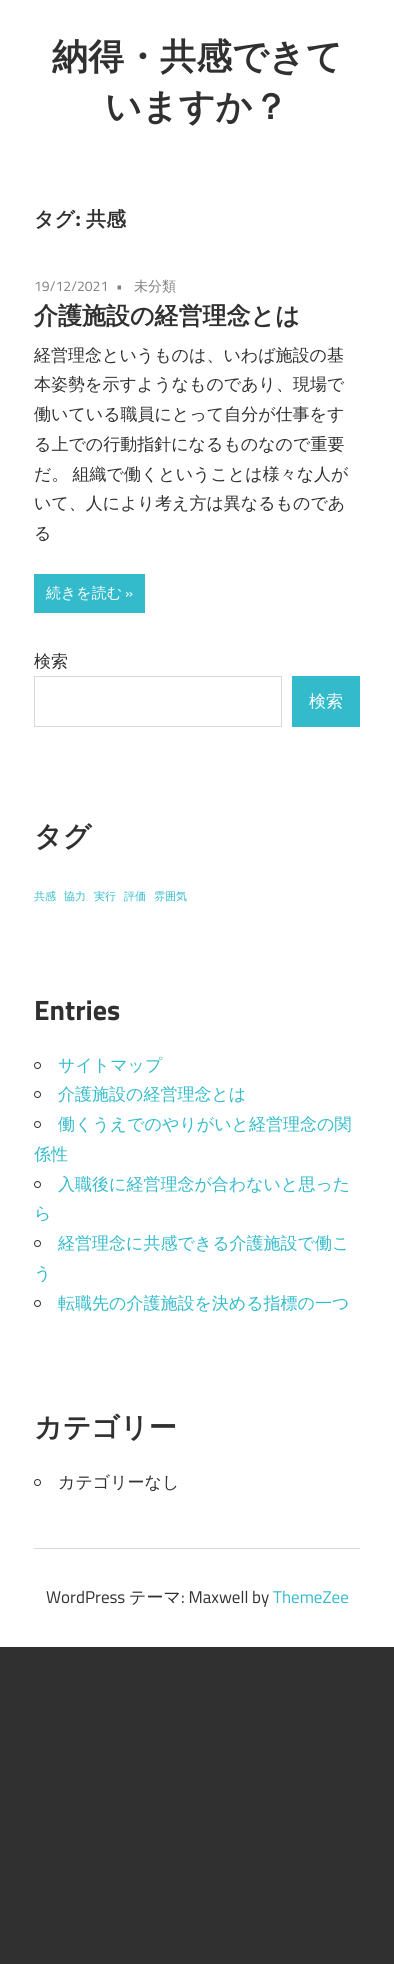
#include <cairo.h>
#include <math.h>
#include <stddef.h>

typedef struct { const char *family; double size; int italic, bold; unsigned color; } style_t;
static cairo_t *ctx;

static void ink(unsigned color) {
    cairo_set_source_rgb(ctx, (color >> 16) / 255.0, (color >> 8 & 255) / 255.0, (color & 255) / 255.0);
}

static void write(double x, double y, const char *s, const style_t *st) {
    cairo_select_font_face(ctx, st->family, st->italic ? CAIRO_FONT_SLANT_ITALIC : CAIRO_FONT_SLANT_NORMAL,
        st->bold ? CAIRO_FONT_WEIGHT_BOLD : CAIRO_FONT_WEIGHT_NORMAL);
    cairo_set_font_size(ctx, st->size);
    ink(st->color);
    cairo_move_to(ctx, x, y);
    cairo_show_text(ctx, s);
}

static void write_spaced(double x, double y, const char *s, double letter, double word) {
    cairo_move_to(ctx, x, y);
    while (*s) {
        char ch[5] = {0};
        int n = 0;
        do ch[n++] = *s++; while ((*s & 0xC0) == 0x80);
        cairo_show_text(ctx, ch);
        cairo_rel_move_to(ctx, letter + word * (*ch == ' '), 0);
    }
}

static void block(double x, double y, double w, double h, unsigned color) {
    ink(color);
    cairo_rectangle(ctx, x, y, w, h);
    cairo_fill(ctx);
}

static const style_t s1 = {"WenQuanYi Zen Hei", 36, 0, 1, 0x303030};
static const style_t s2 = {"WenQuanYi Zen Hei", 20, 0, 1, 0x303030};
static const style_t s3 = {"Amaranth", 20, 0, 1, 0x303030};
static const style_t s4 = {"Titillium Web", 14, 0, 0, 0x808080};
static const style_t s5 = {"WenQuanYi Zen Hei Medium", 14, 0, 0, 0x808080};
static const style_t s6 = {"WenQuanYi Zen Hei", 24, 0, 1, 0x303030};
static const style_t s7 = {"WenQuanYi Zen Hei Medium", 17, 0, 0, 0x303030};
static const style_t s8 = {"WenQuanYi Zen Hei Medium", 15, 0, 0, 0xffffff};
static const style_t s9 = {"Titillium Web", 15, 0, 0, 0xffffff};
static const style_t s10 = {"WenQuanYi Zen Hei Medium", 17, 0, 0, 0xffffff};
static const style_t s11 = {"WenQuanYi Zen Hei", 28, 0, 1, 0x303030};
static const style_t s12 = {"WenQuanYi Zen Hei Medium", 11, 0, 0, 0x33bbcc};
static const style_t s13 = {"Titillium Web", 28, 0, 1, 0x303030};
static const style_t s14 = {"WenQuanYi Zen Hei Medium", 17, 0, 0, 0x33bbcc};
static const style_t s15 = {"Titillium Web", 17, 0, 0, 0x303030};
static const style_t s16 = {"Titillium Web", 17, 0, 0, 0x33bbcc};

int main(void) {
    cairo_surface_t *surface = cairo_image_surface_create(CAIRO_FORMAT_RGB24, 394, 1964);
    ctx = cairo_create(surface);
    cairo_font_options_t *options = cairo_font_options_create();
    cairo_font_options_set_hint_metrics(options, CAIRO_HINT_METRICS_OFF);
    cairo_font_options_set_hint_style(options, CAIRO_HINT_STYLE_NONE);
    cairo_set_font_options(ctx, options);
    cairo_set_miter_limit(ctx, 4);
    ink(0x303030);
    cairo_paint(ctx);
    block(0, 0, 394, 1647, 0xffffff);
    write(52, 69, "納得・共感できて", &s1);
    write(105, 119, "いますか？", &s1);
    write(34, 226, "タグ", &s2);
    write(75, 226, ":", &s3);
    write(86, 226, "共感", &s2);
    write(34, 291, "19/12/2021", &s4);
    write(116, 291, "•", &s4);
    write(134, 291, "未分類", &s5);
    write(34, 324, "介護施設の経営理念とは", &s6);
    write(34, 361, "経営理念というものは、いわば施設の基", &s7);
    write(34, 390, "本姿勢を示すようなものであり、現場で", &s7);
    write(34, 420, "働いている職員にとって自分が仕事をす", &s7);
    write(34, 450, "る上での行動指針になるものなので重要", &s7);
    write_spaced(34, 480, "だ。 組織で働くということは様々な人が", 0, -1);
    write(34, 509, "いて、人により考え方は異なるものであ", &s7);
    write(34, 539, "る", &s7);
    block(34, 574, 111, 39, 0x33bbcc);
    write(46, 598, "続きを読む", &s8);
    write(125, 598, "»", &s9);
    write(34, 667, "検索", &s7);
    cairo_rectangle(ctx, 34.5, 676.5, 247, 50);
    ink(0xd9d9d9);
    cairo_set_line_width(ctx, 1);
    cairo_stroke(ctx);
    block(292, 676, 68, 51, 0x33bbcc);
    write(309, 707, "検索", &s10);
    write(34, 846, "タグ", &s11);
    write(34, 900, "共感", &s12);
    write(64, 900, "協力", &s12);
    write(94, 900, "実行", &s12);
    write(124, 900, "評価", &s12);
    write(154, 900, "雰囲気", &s12);
    write(34, 1020, "Entries", &s13);
    cairo_new_path(ctx);
    cairo_arc(ctx, 37.5, 1065.5, 3, 0, 2 * M_PI);
    cairo_stroke(ctx);
    write(58, 1071, "サイトマップ", &s14);
    cairo_new_path(ctx);
    cairo_arc(ctx, 37.5, 1094.5, 3, 0, 2 * M_PI);
    ink(0x303030);
    cairo_stroke(ctx);
    write(58, 1100, "介護施設の経営理念とは", &s14);
    cairo_new_path(ctx);
    cairo_arc(ctx, 37.5, 1124.5, 3, 0, 2 * M_PI);
    ink(0x303030);
    cairo_stroke(ctx);
    write(58, 1130, "働くうえでのやりがいと経営理念の関", &s14);
    write(34, 1160, "係性", &s14);
    cairo_new_path(ctx);
    cairo_arc(ctx, 37.5, 1184.5, 3, 0, 2 * M_PI);
    ink(0x303030);
    cairo_stroke(ctx);
    write(58, 1190, "入職後に経営理念が合わないと思った", &s14);
    write(34, 1219, "ら", &s14);
    cairo_new_path(ctx);
    cairo_arc(ctx, 37.5, 1243.5, 3, 0, 2 * M_PI);
    ink(0x303030);
    cairo_stroke(ctx);
    write(58, 1249, "経営理念に共感できる介護施設で働こ", &s14);
    write(34, 1279, "う", &s14);
    cairo_new_path(ctx);
    cairo_arc(ctx, 37.5, 1303.5, 3, 0, 2 * M_PI);
    ink(0x303030);
    cairo_stroke(ctx);
    write(58, 1309, "転職先の介護施設を決める指標の一つ", &s14);
    write(34, 1437, "カテゴリー", &s11);
    cairo_new_path(ctx);
    cairo_arc(ctx, 37.5, 1482.5, 3, 0, 2 * M_PI);
    cairo_stroke(ctx);
    write(58, 1488, "カテゴリーなし", &s7);
    block(34, 1548, 326, 1, 0xd9d9d9);
    write(46, 1603, "WordPress", &s15);
    write(129, 1603, "テーマ", &s7);
    write(181, 1603, ": Maxwell by", &s15);
    write(273, 1603, "ThemeZee", &s16);
    cairo_surface_write_to_png(surface, "screenshot.png");
    cairo_font_options_destroy(options);
    cairo_destroy(ctx);
    cairo_surface_destroy(surface);
    return 0;
}
